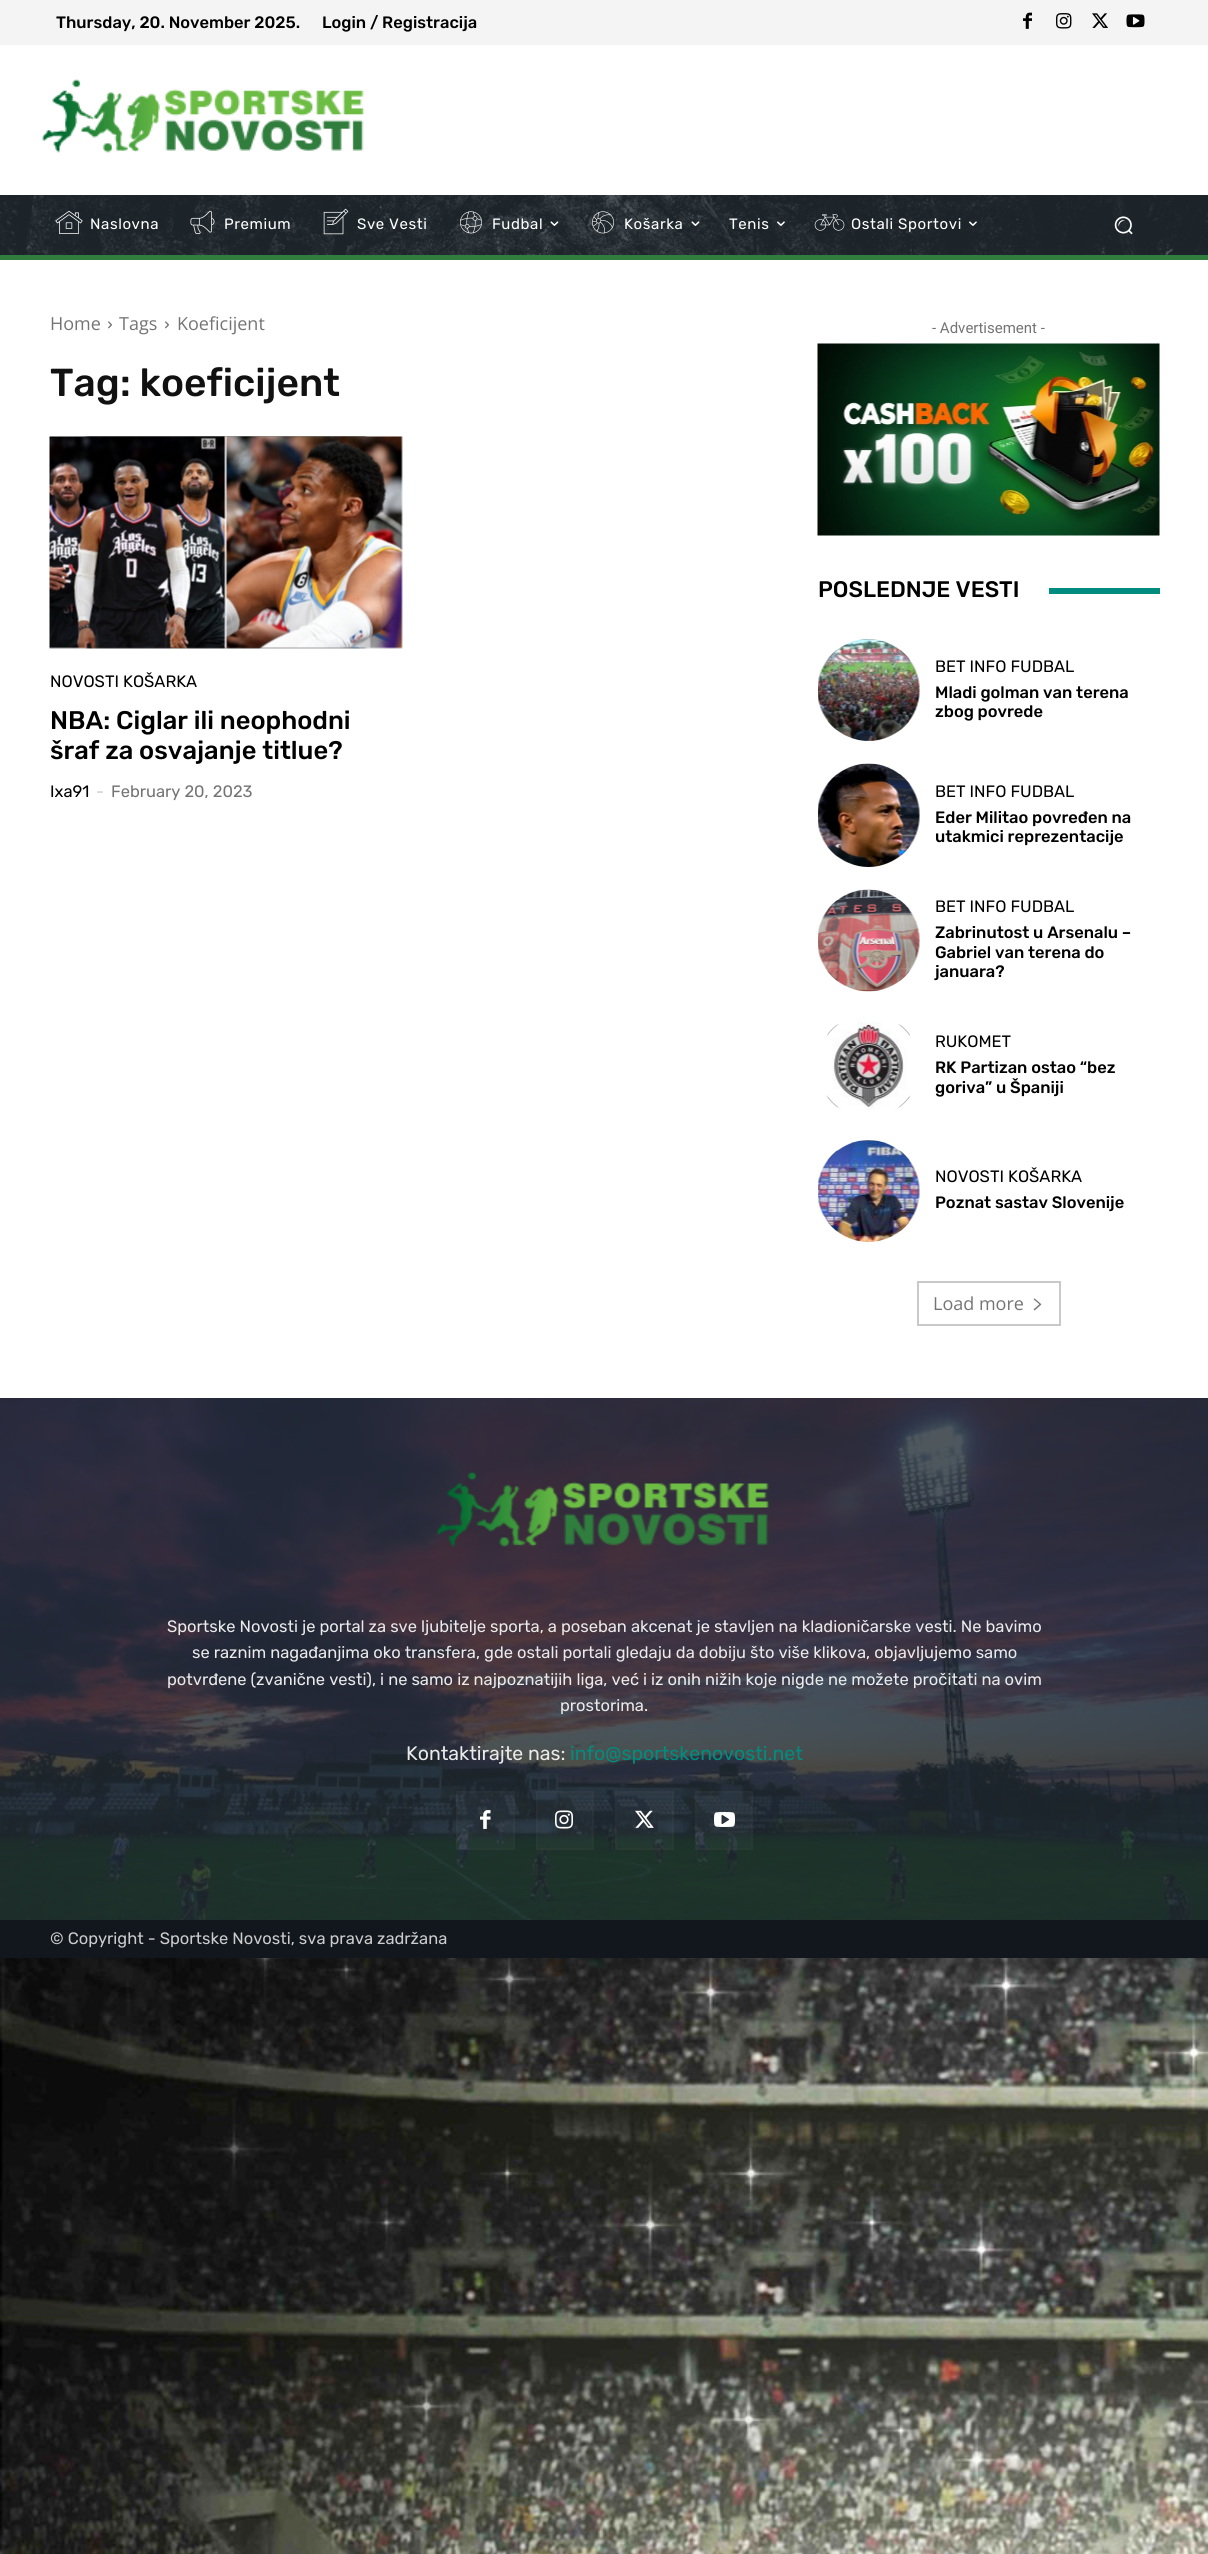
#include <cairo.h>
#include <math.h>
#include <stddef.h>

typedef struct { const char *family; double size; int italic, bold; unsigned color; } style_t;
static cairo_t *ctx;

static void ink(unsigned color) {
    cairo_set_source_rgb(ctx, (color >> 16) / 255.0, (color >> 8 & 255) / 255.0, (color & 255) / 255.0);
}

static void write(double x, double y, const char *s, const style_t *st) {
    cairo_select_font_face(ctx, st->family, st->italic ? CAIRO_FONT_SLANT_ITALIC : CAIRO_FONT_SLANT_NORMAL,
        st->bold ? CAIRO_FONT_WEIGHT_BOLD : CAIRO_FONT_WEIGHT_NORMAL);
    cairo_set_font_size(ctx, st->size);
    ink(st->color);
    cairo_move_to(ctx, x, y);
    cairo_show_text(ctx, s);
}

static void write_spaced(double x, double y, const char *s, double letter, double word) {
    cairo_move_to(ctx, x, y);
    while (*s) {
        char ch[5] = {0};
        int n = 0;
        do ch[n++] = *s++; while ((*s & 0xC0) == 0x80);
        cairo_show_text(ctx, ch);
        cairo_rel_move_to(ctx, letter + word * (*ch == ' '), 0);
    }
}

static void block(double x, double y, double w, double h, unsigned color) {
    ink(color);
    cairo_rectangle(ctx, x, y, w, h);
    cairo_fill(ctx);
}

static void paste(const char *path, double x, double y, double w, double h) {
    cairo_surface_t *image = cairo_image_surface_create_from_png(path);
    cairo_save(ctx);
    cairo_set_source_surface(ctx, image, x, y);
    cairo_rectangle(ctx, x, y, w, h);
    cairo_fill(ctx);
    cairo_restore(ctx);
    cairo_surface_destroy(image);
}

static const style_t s1 = {"Rubik Medium", 16.5, 0, 0, 0x000000};
static const style_t s2 = {"Open Sans", 18, 0, 0, 0x747474};
static const style_t s3 = {"Rubik Medium", 39, 0, 0, 0x111111};
static const style_t s4 = {"Rubik", 16.5, 0, 0, 0x000000};
static const style_t s5 = {"Rubik Medium", 25.5, 0, 0, 0x000000};
static const style_t s6 = {"Rubik", 16.5, 0, 0, 0xcccccc};
static const style_t s7 = {"Rubik", 16.5, 0, 0, 0x747474};
static const style_t s8 = {"Roboto", 15, 0, 0, 0x747474};
static const style_t s9 = {"Rubik Medium", 22.5, 0, 0, 0x000000};
static const style_t s10 = {"Rubik", 16.5, 0, 0, 0xeaeaea};
static const style_t s11 = {"Rubik", 19.5, 0, 0, 0xeaeaea};
static const style_t s12 = {"Rubik", 19.5, 0, 0, 0x008d7f};

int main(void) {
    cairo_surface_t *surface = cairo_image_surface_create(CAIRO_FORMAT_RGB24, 1208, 2554);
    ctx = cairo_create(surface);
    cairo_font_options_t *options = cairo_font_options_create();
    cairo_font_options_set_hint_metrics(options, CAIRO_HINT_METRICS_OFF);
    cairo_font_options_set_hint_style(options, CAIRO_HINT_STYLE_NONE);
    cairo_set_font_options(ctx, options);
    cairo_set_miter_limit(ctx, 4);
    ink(0xffffff);
    cairo_paint(ctx);
    paste("pic1.png", 0, 1958, 1208, 596);
    block(0, 0, 1208, 45, 0xf4f4f4);
    write(56, 28, "Thursday, 20. November 2025.", &s1);
    write(322, 28, "Login / Registracija", &s1);
    paste("pic2.png", 1023, 12, 9, 17);
    paste("pic3.png", 1056, 13, 16, 16);
    paste("pic4.png", 1092, 13, 16, 15);
    paste("pic5.png", 1126, 14, 19, 14);
    paste("pic6.png", 42, 79, 322, 74);
    block(0, 195, 1208, 60, 0x232d35);
    paste("pic7.png", 0, 195, 1208, 60);
    paste("pic8.png", 55, 210, 28, 24);
    cairo_select_font_face(ctx, "Rubik", CAIRO_FONT_SLANT_NORMAL, CAIRO_FONT_WEIGHT_NORMAL);
    cairo_set_font_size(ctx, 15);
    ink(0xffffff);
    write_spaced(90, 229, "Naslovna", 0.6, 0);
    paste("pic9.png", 190, 210, 25, 24);
    write_spaced(224, 229, "Premium", 0.6, 0);
    paste("pic10.png", 323, 208, 26, 27);
    write_spaced(357, 229, "Sve Vesti", 0.6, 0);
    paste("pic11.png", 460, 211, 22, 23);
    write_spaced(492, 229, "Fudbal", 0.6, 0);
    paste("pic12.png", 550, 221, 9, 5);
    paste("pic13.png", 592, 211, 22, 23);
    write_spaced(624, 229, "Košarka", 0.6, 0);
    paste("pic14.png", 691, 221, 9, 5);
    write_spaced(729, 229, "Tenis", 0.6, 0);
    paste("pic15.png", 777, 221, 8, 5);
    paste("pic16.png", 814, 214, 31, 17);
    write_spaced(851, 229, "Ostali Sportovi", 0.6, 0);
    paste("pic17.png", 969, 221, 8, 5);
    paste("pic18.png", 1114, 216, 19, 19);
    block(0, 255, 1208, 5, 0x307d3d);
    write(50, 330, "Home", &s2);
    paste("pic19.png", 108, 321, 4, 8);
    write(119, 330, "Tags", &s2);
    paste("pic19.png", 165, 321, 4, 8);
    write(177, 330, "Koeficijent", &s2);
    write(50, 396, "Tag: koeficijent", &s3);
    paste("pic21.png", 80, 436, 292, 213);
    paste("pic20.png", 49, 436, 354, 213);
    write(50, 687, "NOVOSTI KOŠARKA", &s4);
    write(50, 729, "NBA: Ciglar ili neophodni", &s5);
    write(50, 759, "šraf za osvajanje titlue?", &s5);
    write(50, 797, "Ixa91", &s4);
    write(96, 797, "-", &s6);
    write(111, 797, "February 20, 2023", &s7);
    write(932, 333, "- Advertisement -", &s8);
    paste("pic22.png", 817, 343, 343, 193);
    write(818, 597, "POSLEDNJE VESTI", &s9);
    block(1049, 588, 111, 6, 0x008d7f);
    paste("pic24.png", 826, 649, 85, 85);
    paste("pic23.png", 818, 639, 102, 102);
    write(935, 672, "BET INFO FUDBAL", &s4);
    write(935, 698, "Mladi golman van terena", &s1);
    write(935, 717, "zbog povrede", &s1);
    paste("pic26.png", 826, 773, 85, 87);
    paste("pic25.png", 818, 763, 102, 104);
    write(935, 797, "BET INFO FUDBAL", &s4);
    write(935, 823, "Eder Militao povređen na", &s1);
    write(935, 842, "utakmici reprezentacije", &s1);
    paste("pic28.png", 826, 899, 85, 85);
    paste("pic27.png", 818, 889, 102, 103);
    write(935, 912, "BET INFO FUDBAL", &s4);
    write(935, 938, "Zabrinutost u Arsenalu –", &s1);
    write(935, 958, "Gabriel van terena do", &s1);
    write(935, 977, "januara?", &s1);
    paste("pic30.png", 826, 1024, 85, 87);
    paste("pic29.png", 826, 1015, 86, 96);
    write(935, 1047, "RUKOMET", &s4);
    write(935, 1073, "RK Partizan ostao “bez", &s1);
    write(935, 1093, "goriva” u Španiji", &s1);
    paste("pic32.png", 826, 1150, 85, 85);
    paste("pic31.png", 818, 1140, 102, 102);
    write(935, 1182, "NOVOSTI KOŠARKA", &s4);
    write(935, 1208, "Poznat sastav Slovenije", &s1);
    cairo_rectangle(ctx, 918, 1282, 142, 43);
    ink(0xc9c9c9);
    cairo_stroke(ctx);
    write(933, 1310, "Load more", &s2);
    paste("pic33.png", 1033, 1298, 9, 13);
    block(0, 1398, 1208, 522, 0x232d35);
    paste("pic34.png", 0, 1398, 1208, 522);
    paste("pic35.png", 436, 1471, 333, 76);
    write(167, 1632, "Sportske Novosti je portal za sve ljubitelje sporta, a poseban akcenat je stavljen na kladioničarske vesti. Ne bavimo", &s10);
    write(192, 1658, "se raznim nagađanjima oko transfera, gde ostali portali gledaju da dobiju što više klikova, objavljujemo samo", &s10);
    write(167, 1685, "potvrđene (zvanične vesti), i ne samo iz najpoznatijih liga, već i iz onih nižih koje nigde ne možete pročitati na ovim", &s10);
    write(560, 1711, "prostorima.", &s10);
    write(406, 1760, "Kontaktirajte nas:", &s11);
    write(570, 1760, "info@sportskenovosti.net", &s12);
    cairo_set_source_rgba(ctx, 1, 1, 1, 0.03);
    cairo_rectangle(ctx, 456, 1791, 59, 59);
    cairo_fill(ctx);
    cairo_rectangle(ctx, 457, 1792, 57, 57);
    cairo_set_source_rgba(ctx, 0.796, 0.584, 0.345, 0.03);
    cairo_stroke(ctx);
    paste("pic36.png", 480, 1810, 11, 19);
    cairo_set_source_rgba(ctx, 1, 1, 1, 0.03);
    cairo_rectangle(ctx, 536, 1791, 58, 59);
    cairo_fill(ctx);
    cairo_rectangle(ctx, 537, 1792, 56, 57);
    cairo_set_source_rgba(ctx, 0.796, 0.584, 0.345, 0.03);
    cairo_stroke(ctx);
    paste("pic37.png", 555, 1810, 18, 19);
    cairo_set_source_rgba(ctx, 1, 1, 1, 0.03);
    cairo_rectangle(ctx, 615, 1791, 59, 59);
    cairo_fill(ctx);
    cairo_rectangle(ctx, 616, 1792, 57, 57);
    cairo_set_source_rgba(ctx, 0.796, 0.584, 0.345, 0.03);
    cairo_stroke(ctx);
    paste("pic38.png", 635, 1810, 19, 18);
    cairo_set_source_rgba(ctx, 1, 1, 1, 0.03);
    cairo_rectangle(ctx, 695, 1791, 58, 59);
    cairo_fill(ctx);
    cairo_rectangle(ctx, 696, 1792, 56, 57);
    cairo_set_source_rgba(ctx, 0.796, 0.584, 0.345, 0.03);
    cairo_stroke(ctx);
    paste("pic39.png", 714, 1812, 21, 15);
    block(0, 1920, 1208, 38, 0x11171c);
    write(50, 1944, "© Copyright - Sportske Novosti, sva prava zadržana", &s6);
    cairo_surface_write_to_png(surface, "screenshot.png");
    cairo_font_options_destroy(options);
    cairo_destroy(ctx);
    cairo_surface_destroy(surface);
    return 0;
}
